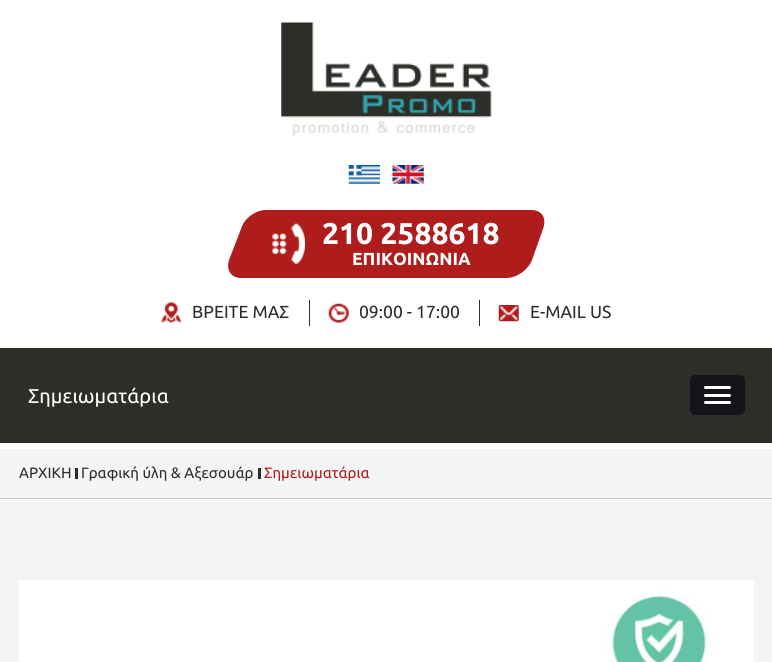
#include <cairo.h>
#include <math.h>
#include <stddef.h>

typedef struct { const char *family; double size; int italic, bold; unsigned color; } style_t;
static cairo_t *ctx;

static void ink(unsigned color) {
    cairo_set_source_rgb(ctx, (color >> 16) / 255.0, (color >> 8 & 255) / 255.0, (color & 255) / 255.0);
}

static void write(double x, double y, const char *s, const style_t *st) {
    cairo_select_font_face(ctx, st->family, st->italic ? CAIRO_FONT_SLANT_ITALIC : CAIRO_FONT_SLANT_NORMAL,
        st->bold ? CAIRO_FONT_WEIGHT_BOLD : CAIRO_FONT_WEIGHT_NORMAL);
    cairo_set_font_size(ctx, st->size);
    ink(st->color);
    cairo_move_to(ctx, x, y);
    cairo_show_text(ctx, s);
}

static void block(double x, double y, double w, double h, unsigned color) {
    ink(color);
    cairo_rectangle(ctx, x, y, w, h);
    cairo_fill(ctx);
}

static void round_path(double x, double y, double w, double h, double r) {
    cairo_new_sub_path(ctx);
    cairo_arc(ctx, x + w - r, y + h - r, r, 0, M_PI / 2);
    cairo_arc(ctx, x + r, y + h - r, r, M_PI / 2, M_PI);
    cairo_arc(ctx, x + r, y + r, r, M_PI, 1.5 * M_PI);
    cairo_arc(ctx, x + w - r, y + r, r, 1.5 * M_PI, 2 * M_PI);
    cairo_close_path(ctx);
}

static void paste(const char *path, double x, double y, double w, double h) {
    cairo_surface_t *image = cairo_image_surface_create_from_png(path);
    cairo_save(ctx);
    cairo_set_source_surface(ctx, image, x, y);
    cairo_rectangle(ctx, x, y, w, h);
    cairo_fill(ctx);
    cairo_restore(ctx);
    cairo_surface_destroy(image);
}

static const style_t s1 = {"Ubuntu", 30, 0, 1, 0xffffff};
static const style_t s2 = {"Ubuntu", 17.5, 0, 1, 0xffffff};
static const style_t s3 = {"Ubuntu", 17.5, 0, 0, 0x2d2e28};
static const style_t s4 = {"Ubuntu", 20, 0, 0, 0xffffff};
static const style_t s5 = {"Ubuntu", 15, 0, 0, 0x2d2e28};
static const style_t s6 = {"Ubuntu", 15, 0, 0, 0xaf1c1c};

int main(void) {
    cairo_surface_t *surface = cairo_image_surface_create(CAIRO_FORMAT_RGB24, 772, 662);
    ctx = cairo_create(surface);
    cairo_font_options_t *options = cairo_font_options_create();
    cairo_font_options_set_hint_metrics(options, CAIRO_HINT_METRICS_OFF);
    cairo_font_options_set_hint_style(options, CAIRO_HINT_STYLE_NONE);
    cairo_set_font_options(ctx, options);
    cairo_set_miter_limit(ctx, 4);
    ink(0xf4f4f4);
    cairo_paint(ctx);
    block(0, 0, 772, 449, 0xffffff);
    paste("pic1.png", 281, 22, 211, 114);
    paste("pic2.png", 348, 165, 32, 19);
    paste("pic3.png", 392, 165, 32, 19);
    ink(0xaf1c1c);
    cairo_new_path(ctx);
    cairo_move_to(ctx, 266, 210);
    cairo_line_to(ctx, 531, 210);
    cairo_curve_to(ctx, 542, 210, 547, 218, 543, 229);
    cairo_line_to(ctx, 532, 260);
    cairo_curve_to(ctx, 528, 270, 517, 278, 506, 278);
    cairo_line_to(ctx, 241, 278);
    cairo_curve_to(ctx, 231, 278, 226, 270, 229, 260);
    cairo_line_to(ctx, 241, 229);
    cairo_curve_to(ctx, 244, 218, 256, 210, 266, 210);
    cairo_close_path(ctx);
    cairo_fill(ctx);
    paste("pic4.png", 272, 223, 33, 41);
    write(322, 244, "210 2588618", &s1);
    write(352, 265, "ΕΠΙΚΟΙΝΩΝΙΑ", &s2);
    paste("pic5.png", 161, 302, 21, 21);
    block(309, 300, 1, 26, 0x2d2e28);
    write(192, 318, "ΒΡΕΙΤΕ ΜΑΣ", &s3);
    paste("pic6.png", 328, 303, 21, 20);
    block(479, 300, 1, 26, 0x2d2e28);
    write(359, 318, "09:00 - 17:00", &s3);
    paste("pic7.png", 498, 305, 21, 17);
    write(530, 318, "E-MAIL US", &s3);
    block(0, 348, 772, 95, 0x2d2e28);
    write(28, 403, "Σημειωματάρια", &s4);
    ink(0x13151b);
    round_path(690, 375, 55, 40, 5);
    cairo_fill(ctx);
    ink(0xffffff);
    round_path(704, 386, 27, 3, 1.5);
    cairo_fill(ctx);
    round_path(704, 394, 27, 3, 1.5);
    cairo_fill(ctx);
    round_path(704, 401, 27, 3, 1.5);
    cairo_fill(ctx);
    block(0, 498, 772, 1, 0xc8c8c8);
    block(75, 468, 3, 11, 0x2d2e28);
    write(19, 478, "ΑΡΧΙΚΗ", &s5);
    block(258, 468, 3, 11, 0x2d2e28);
    write(81, 478, "Γραφική ύλη & Αξεσουάρ", &s5);
    write(264, 478, "Σημειωματάρια", &s6);
    paste("pic8.png", 19, 580, 735, 82);
    cairo_surface_write_to_png(surface, "screenshot.png");
    cairo_font_options_destroy(options);
    cairo_destroy(ctx);
    cairo_surface_destroy(surface);
    return 0;
}
